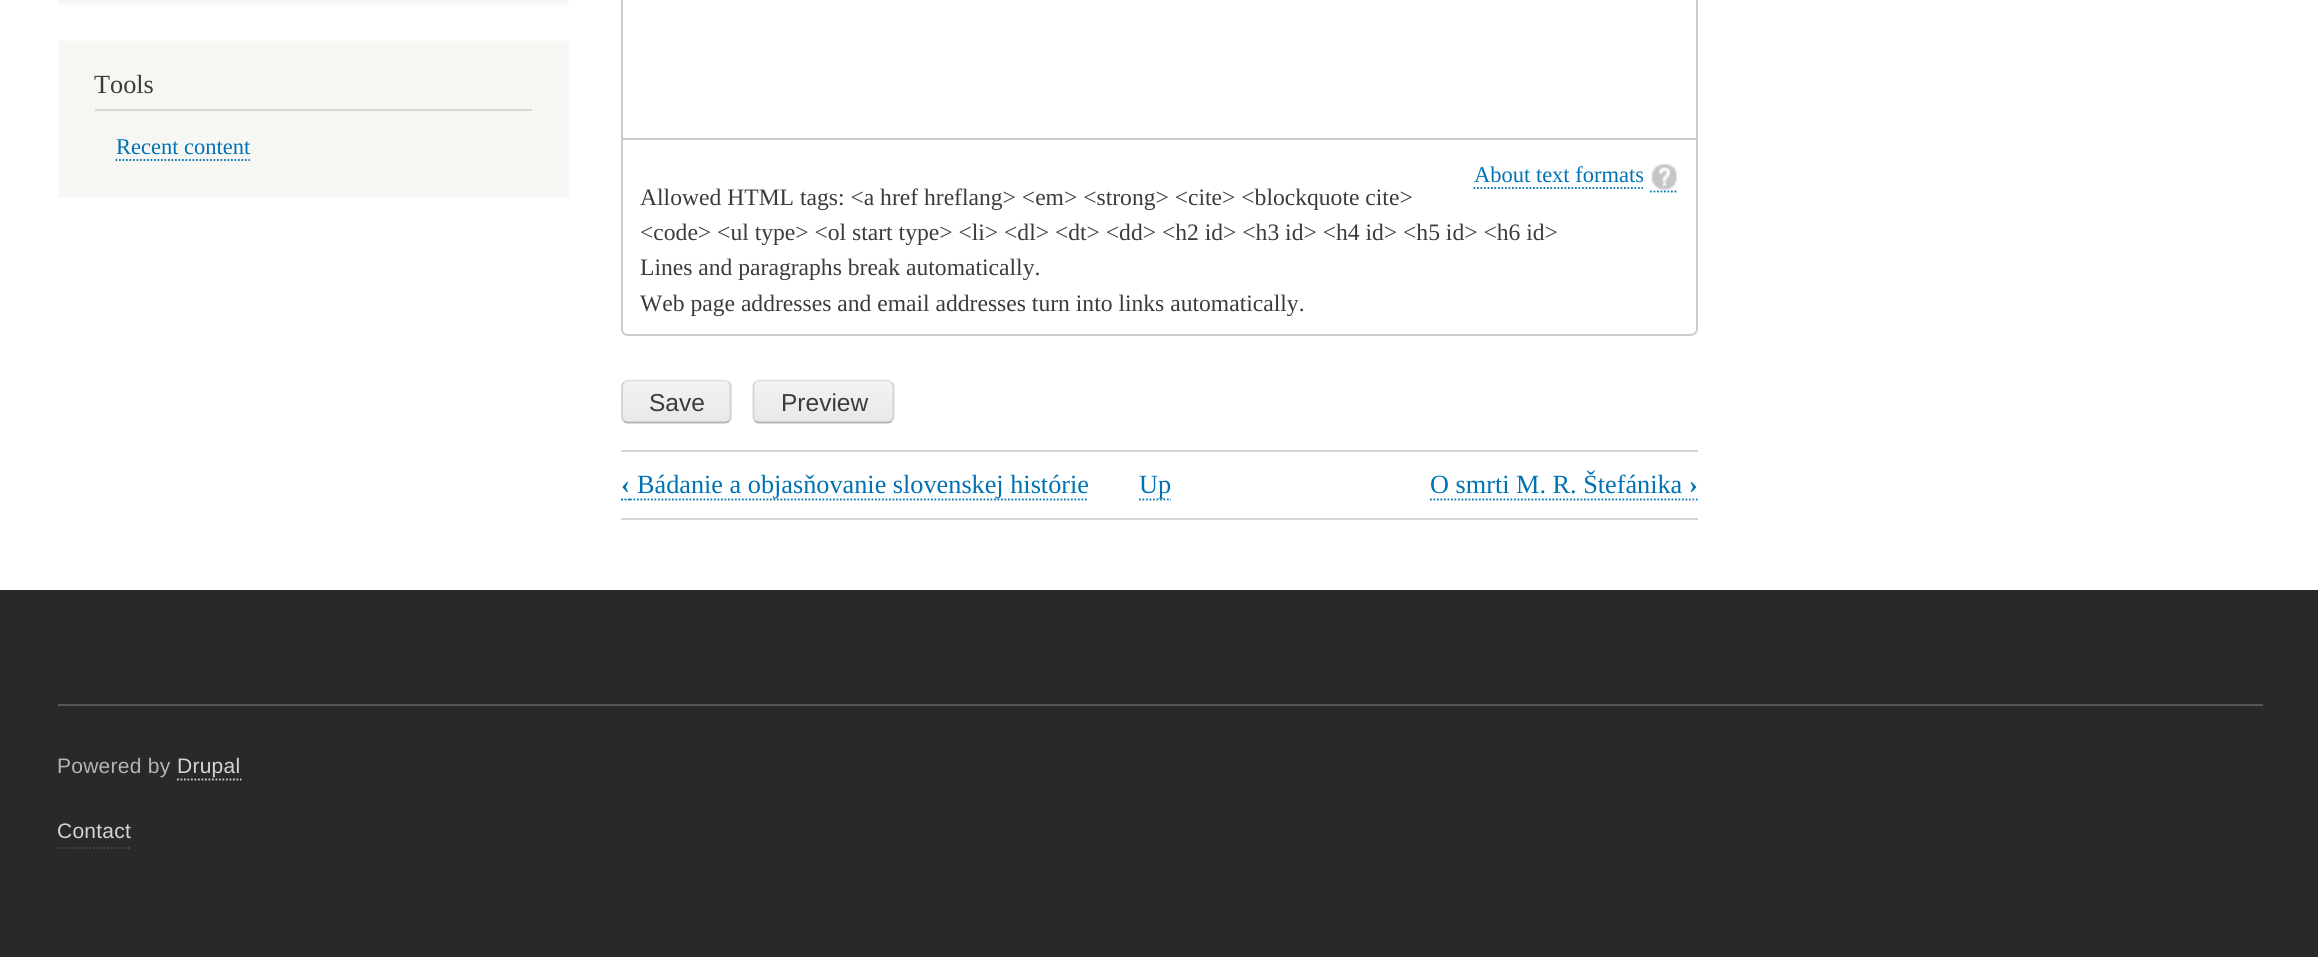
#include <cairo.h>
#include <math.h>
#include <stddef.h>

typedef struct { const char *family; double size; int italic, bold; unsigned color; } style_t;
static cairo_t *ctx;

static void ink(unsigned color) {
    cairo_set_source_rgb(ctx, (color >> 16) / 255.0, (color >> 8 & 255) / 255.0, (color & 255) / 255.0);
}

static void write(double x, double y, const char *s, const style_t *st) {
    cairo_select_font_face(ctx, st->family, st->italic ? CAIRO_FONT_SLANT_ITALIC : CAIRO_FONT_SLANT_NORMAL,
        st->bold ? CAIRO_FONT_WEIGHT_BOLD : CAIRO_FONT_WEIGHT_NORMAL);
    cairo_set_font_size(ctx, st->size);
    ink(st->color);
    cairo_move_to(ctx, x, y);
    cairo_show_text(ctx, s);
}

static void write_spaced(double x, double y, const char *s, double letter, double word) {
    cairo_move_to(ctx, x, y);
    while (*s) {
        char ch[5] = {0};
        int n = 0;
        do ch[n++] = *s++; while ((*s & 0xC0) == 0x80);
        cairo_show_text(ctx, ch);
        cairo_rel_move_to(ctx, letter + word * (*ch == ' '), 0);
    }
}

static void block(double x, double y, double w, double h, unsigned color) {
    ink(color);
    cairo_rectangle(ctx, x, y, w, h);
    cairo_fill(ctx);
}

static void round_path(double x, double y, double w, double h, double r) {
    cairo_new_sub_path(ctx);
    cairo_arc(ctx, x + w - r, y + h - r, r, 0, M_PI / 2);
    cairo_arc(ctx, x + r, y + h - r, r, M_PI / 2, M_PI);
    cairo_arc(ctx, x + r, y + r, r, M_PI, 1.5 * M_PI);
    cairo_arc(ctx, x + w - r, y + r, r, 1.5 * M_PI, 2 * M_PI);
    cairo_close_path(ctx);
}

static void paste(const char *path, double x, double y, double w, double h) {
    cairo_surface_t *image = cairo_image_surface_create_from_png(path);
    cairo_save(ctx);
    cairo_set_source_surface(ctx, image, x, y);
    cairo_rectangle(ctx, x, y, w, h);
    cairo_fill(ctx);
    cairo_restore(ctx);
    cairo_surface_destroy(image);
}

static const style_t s1 = {"Liberation Serif", 26.25, 0, 0, 0x3b3b3b};
static const style_t s2 = {"Liberation Serif", 22.5, 0, 0, 0x0071b3};
static const style_t s3 = {"Liberation Serif", 23.6, 0, 0, 0x3b3b3b};
static const style_t s4 = {"Liberation Sans", 24.5, 0, 0, 0x3b3b3b};
static const style_t s5 = {"Liberation Serif", 26.25, 0, 1, 0x0071b3};
static const style_t s6 = {"Liberation Serif", 26.25, 0, 0, 0x0071b3};

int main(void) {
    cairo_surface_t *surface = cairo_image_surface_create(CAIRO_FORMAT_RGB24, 2318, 957);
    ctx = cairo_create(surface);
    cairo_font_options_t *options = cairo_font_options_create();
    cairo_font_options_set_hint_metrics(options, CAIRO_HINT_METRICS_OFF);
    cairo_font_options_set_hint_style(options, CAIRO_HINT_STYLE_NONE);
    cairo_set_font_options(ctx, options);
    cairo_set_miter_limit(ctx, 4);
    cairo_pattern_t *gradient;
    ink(0xffffff);
    cairo_paint(ctx);
    ink(0xf6f6f2);
    cairo_rectangle(ctx, 59, -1, 509, 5);
    cairo_fill_preserve(ctx);
    ink(0xf9f9f9);
    cairo_stroke(ctx);
    ink(0xf6f6f2);
    cairo_rectangle(ctx, 59, 41, 509, 156);
    cairo_fill_preserve(ctx);
    ink(0xf9f9f9);
    cairo_stroke(ctx);
    block(95, 109, 437, 2, 0xd6d6d6);
    write(94, 93, "Tools", &s1);
    write(116, 154, "Recent content", &s2);
    cairo_new_path(ctx);
    cairo_move_to(ctx, 115.5, 160);
    cairo_line_to(ctx, 250, 160);
    cairo_set_line_width(ctx, 1.8);
    cairo_set_dash(ctx, (double[]){1.75, 1.75}, 2, 0);
    cairo_stroke(ctx);
    cairo_rectangle(ctx, 622, -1, 1075, 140);
    ink(0xcccccc);
    cairo_set_line_width(ctx, 2);
    cairo_set_dash(ctx, NULL, 0, 0);
    cairo_stroke(ctx);
    cairo_set_fill_rule(ctx, CAIRO_FILL_RULE_EVEN_ODD);
    cairo_new_path(ctx);
    cairo_move_to(ctx, 621, 140);
    cairo_line_to(ctx, 1698, 140);
    cairo_line_to(ctx, 1698, 329);
    cairo_curve_to(ctx, 1698, 333, 1694, 336, 1690, 336);
    cairo_line_to(ctx, 628, 336);
    cairo_curve_to(ctx, 624, 336, 621, 333, 621, 329);
    cairo_close_path(ctx);
    cairo_move_to(ctx, 623, 140);
    cairo_line_to(ctx, 1696, 140);
    cairo_line_to(ctx, 1696, 329);
    cairo_curve_to(ctx, 1696, 332, 1693, 334, 1690, 334);
    cairo_line_to(ctx, 628, 334);
    cairo_curve_to(ctx, 625, 334, 623, 332, 623, 329);
    cairo_close_path(ctx);
    cairo_fill(ctx);
    cairo_new_path(ctx);
    cairo_move_to(ctx, 1473.5, 188);
    cairo_line_to(ctx, 1643, 188);
    ink(0x0071b3);
    cairo_set_line_width(ctx, 1.8);
    cairo_set_dash(ctx, (double[]){1.75, 1.75}, 2, 0);
    cairo_stroke(ctx);
    cairo_new_path(ctx);
    cairo_move_to(ctx, 1650, 191.5);
    cairo_line_to(ctx, 1678, 191.5);
    cairo_stroke(ctx);
    write(1474, 182, "About text formats", &s2);
    paste("pic1.png", 1651, 164, 26, 27);
    write(640, 205, "Allowed HTML tags: <a href hreflang> <em> <strong> <cite> <blockquote cite>", &s3);
    write(640, 240, "<code> <ul type> <ol start type> <li> <dl> <dt> <dd> <h2 id> <h3 id> <h4 id> <h5 id> <h6 id>", &s3);
    write(640, 275, "Lines and paragraphs break automatically.", &s3);
    write(640, 311, "Web page addresses and email addresses turn into links automatically.", &s3);
    cairo_save(ctx);
    cairo_set_fill_rule(ctx, CAIRO_FILL_RULE_WINDING);
    round_path(621, 380, 111, 44, 7);
    cairo_clip(ctx);
    gradient = cairo_pattern_create_linear(676, 341, 676, 382);
    cairo_pattern_add_color_stop_rgba(gradient, 0, 0.953, 0.953, 0.953, 1);
    cairo_pattern_add_color_stop_rgba(gradient, 1, 0.91, 0.91, 0.91, 1);
    cairo_set_source(ctx, gradient);
    cairo_pattern_destroy(gradient);
    cairo_rectangle(ctx, 621, 380, 111, 2);
    cairo_fill(ctx);
    gradient = cairo_pattern_create_linear(676, 382, 676, 422);
    cairo_pattern_add_color_stop_rgba(gradient, 0, 0.953, 0.953, 0.953, 1);
    cairo_pattern_add_color_stop_rgba(gradient, 1, 0.91, 0.91, 0.91, 1);
    cairo_set_source(ctx, gradient);
    cairo_pattern_destroy(gradient);
    cairo_rectangle(ctx, 621, 382, 111, 40);
    cairo_fill(ctx);
    gradient = cairo_pattern_create_linear(676, 422, 676, 462);
    cairo_pattern_add_color_stop_rgba(gradient, 0, 0.953, 0.953, 0.953, 1);
    cairo_pattern_add_color_stop_rgba(gradient, 1, 0.91, 0.91, 0.91, 1);
    cairo_set_source(ctx, gradient);
    cairo_pattern_destroy(gradient);
    cairo_rectangle(ctx, 621, 422, 111, 2);
    cairo_fill(ctx);
    cairo_restore(ctx);
    cairo_new_path(ctx);
    cairo_move_to(ctx, 624, 382.5);
    cairo_curve_to(ctx, 625, 381.5, 626.5, 380.5, 628, 380.5);
    cairo_line_to(ctx, 724.5, 380.5);
    cairo_curve_to(ctx, 726, 380.5, 727.5, 381.5, 729, 382.5);
    ink(0xe4e4e4);
    cairo_set_dash(ctx, NULL, 0, 0);
    cairo_stroke(ctx);
    cairo_new_path(ctx);
    cairo_move_to(ctx, 729, 382.5);
    cairo_curve_to(ctx, 730, 383.5, 730.5, 385, 730.5, 387);
    cairo_line_to(ctx, 730.5, 416.5);
    cairo_curve_to(ctx, 730.5, 418, 730, 419.5, 729, 421);
    ink(0xd2d2d2);
    cairo_stroke(ctx);
    cairo_new_path(ctx);
    cairo_move_to(ctx, 729, 421);
    cairo_curve_to(ctx, 727.5, 422, 726, 422.5, 724.5, 422.5);
    cairo_line_to(ctx, 628, 422.5);
    cairo_curve_to(ctx, 626.5, 422.5, 625, 422, 624, 421);
    ink(0xb4b4b4);
    cairo_stroke(ctx);
    cairo_new_path(ctx);
    cairo_move_to(ctx, 624, 421);
    cairo_curve_to(ctx, 623, 419.5, 622, 418, 622, 416.5);
    cairo_line_to(ctx, 622, 387);
    cairo_curve_to(ctx, 622, 385, 623, 383.5, 624, 382.5);
    ink(0xd2d2d2);
    cairo_stroke(ctx);
    write(649, 411, "Save", &s4);
    cairo_save(ctx);
    cairo_set_fill_rule(ctx, CAIRO_FILL_RULE_WINDING);
    round_path(753, 380, 141, 44, 7);
    cairo_clip(ctx);
    gradient = cairo_pattern_create_linear(823, 341, 823, 382);
    cairo_pattern_add_color_stop_rgba(gradient, 0, 0.953, 0.953, 0.953, 1);
    cairo_pattern_add_color_stop_rgba(gradient, 1, 0.91, 0.91, 0.91, 1);
    cairo_set_source(ctx, gradient);
    cairo_pattern_destroy(gradient);
    cairo_rectangle(ctx, 753, 380, 141, 2);
    cairo_fill(ctx);
    gradient = cairo_pattern_create_linear(823, 382, 823, 422);
    cairo_pattern_add_color_stop_rgba(gradient, 0, 0.953, 0.953, 0.953, 1);
    cairo_pattern_add_color_stop_rgba(gradient, 1, 0.91, 0.91, 0.91, 1);
    cairo_set_source(ctx, gradient);
    cairo_pattern_destroy(gradient);
    cairo_rectangle(ctx, 753, 382, 141, 40);
    cairo_fill(ctx);
    gradient = cairo_pattern_create_linear(823, 422, 823, 462);
    cairo_pattern_add_color_stop_rgba(gradient, 0, 0.953, 0.953, 0.953, 1);
    cairo_pattern_add_color_stop_rgba(gradient, 1, 0.91, 0.91, 0.91, 1);
    cairo_set_source(ctx, gradient);
    cairo_pattern_destroy(gradient);
    cairo_rectangle(ctx, 753, 422, 141, 2);
    cairo_fill(ctx);
    cairo_restore(ctx);
    cairo_new_path(ctx);
    cairo_move_to(ctx, 755, 382.5);
    cairo_curve_to(ctx, 756.5, 381.5, 758, 380.5, 759.5, 380.5);
    cairo_line_to(ctx, 887, 380.5);
    cairo_curve_to(ctx, 889, 380.5, 890.5, 381.5, 891.5, 382.5);
    ink(0xe4e4e4);
    cairo_stroke(ctx);
    cairo_new_path(ctx);
    cairo_move_to(ctx, 891.5, 382.5);
    cairo_curve_to(ctx, 892.5, 383.5, 893.5, 385, 893.5, 387);
    cairo_line_to(ctx, 893.5, 416.5);
    cairo_curve_to(ctx, 893.5, 418, 892.5, 419.5, 891.5, 421);
    ink(0xd2d2d2);
    cairo_stroke(ctx);
    cairo_new_path(ctx);
    cairo_move_to(ctx, 891.5, 421);
    cairo_curve_to(ctx, 890.5, 422, 889, 422.5, 887, 422.5);
    cairo_line_to(ctx, 759.5, 422.5);
    cairo_curve_to(ctx, 758, 422.5, 756.5, 422, 755, 421);
    ink(0xb4b4b4);
    cairo_stroke(ctx);
    cairo_new_path(ctx);
    cairo_move_to(ctx, 755, 421);
    cairo_curve_to(ctx, 754, 419.5, 753.5, 418, 753.5, 416.5);
    cairo_line_to(ctx, 753.5, 387);
    cairo_curve_to(ctx, 753.5, 385, 754, 383.5, 755, 382.5);
    ink(0xd2d2d2);
    cairo_stroke(ctx);
    write(781, 411, "Preview", &s4);
    block(621, 450, 1077, 2, 0xd6d6d6);
    block(621, 518, 1077, 2, 0xd6d6d6);
    write(621, 493, "‹", &s5);
    cairo_new_path(ctx);
    cairo_move_to(ctx, 621, 499.5);
    cairo_line_to(ctx, 623, 499.5);
    cairo_move_to(ctx, 624.5, 499.5);
    cairo_line_to(ctx, 626.5, 499.5);
    cairo_move_to(ctx, 628, 499.5);
    cairo_line_to(ctx, 630, 499.5);
    cairo_stroke(ctx);
    cairo_new_path(ctx);
    cairo_move_to(ctx, 630, 499.5);
    cairo_line_to(ctx, 1088.5, 499.5);
    cairo_set_dash(ctx, (double[]){1.75, 1.75}, 2, 0);
    cairo_stroke(ctx);
    write(637, 493, "Bádanie a objasňovanie slovenskej histórie", &s6);
    cairo_new_path(ctx);
    cairo_move_to(ctx, 1139, 499.5);
    cairo_line_to(ctx, 1171, 499.5);
    cairo_stroke(ctx);
    write(1139, 493, "Up", &s6);
    write(1430, 493, "O smrti M. R. Štefánika", &s6);
    write(1689, 493, "›", &s5);
    cairo_new_path(ctx);
    cairo_move_to(ctx, 1430, 499.5);
    cairo_line_to(ctx, 1689, 499.5);
    cairo_stroke(ctx);
    cairo_new_path(ctx);
    cairo_move_to(ctx, 1689, 499.5);
    cairo_line_to(ctx, 1690.5, 499.5);
    cairo_move_to(ctx, 1692.5, 499.5);
    cairo_line_to(ctx, 1694, 499.5);
    cairo_move_to(ctx, 1696, 499.5);
    cairo_line_to(ctx, 1697.5, 499.5);
    cairo_set_dash(ctx, NULL, 0, 0);
    cairo_stroke(ctx);
    block(0, 590, 2318, 367, 0x292929);
    block(58, 704, 2205, 2, 0x555555);
    cairo_select_font_face(ctx, "Liberation Sans", CAIRO_FONT_SLANT_NORMAL, CAIRO_FONT_WEIGHT_NORMAL);
    cairo_set_font_size(ctx, 21);
    ink(0xb4b4b4);
    write_spaced(57, 773, "Powered by", 0.25, 0);
    ink(0xd4d4d4);
    write_spaced(177, 773, "Drupal", 0.25, 0);
    cairo_new_path(ctx);
    cairo_move_to(ctx, 177, 779.5);
    cairo_line_to(ctx, 241.5, 779.5);
    cairo_set_dash(ctx, (double[]){1.75, 1.75}, 2, 0);
    cairo_stroke(ctx);
    cairo_new_path(ctx);
    cairo_move_to(ctx, 58, 848);
    cairo_line_to(ctx, 131, 848);
    ink(0x494949);
    cairo_stroke(ctx);
    ink(0xd4d4d4);
    write_spaced(57, 838, "Contact", 0.25, 0);
    cairo_surface_write_to_png(surface, "screenshot.png");
    cairo_font_options_destroy(options);
    cairo_destroy(ctx);
    cairo_surface_destroy(surface);
    return 0;
}
